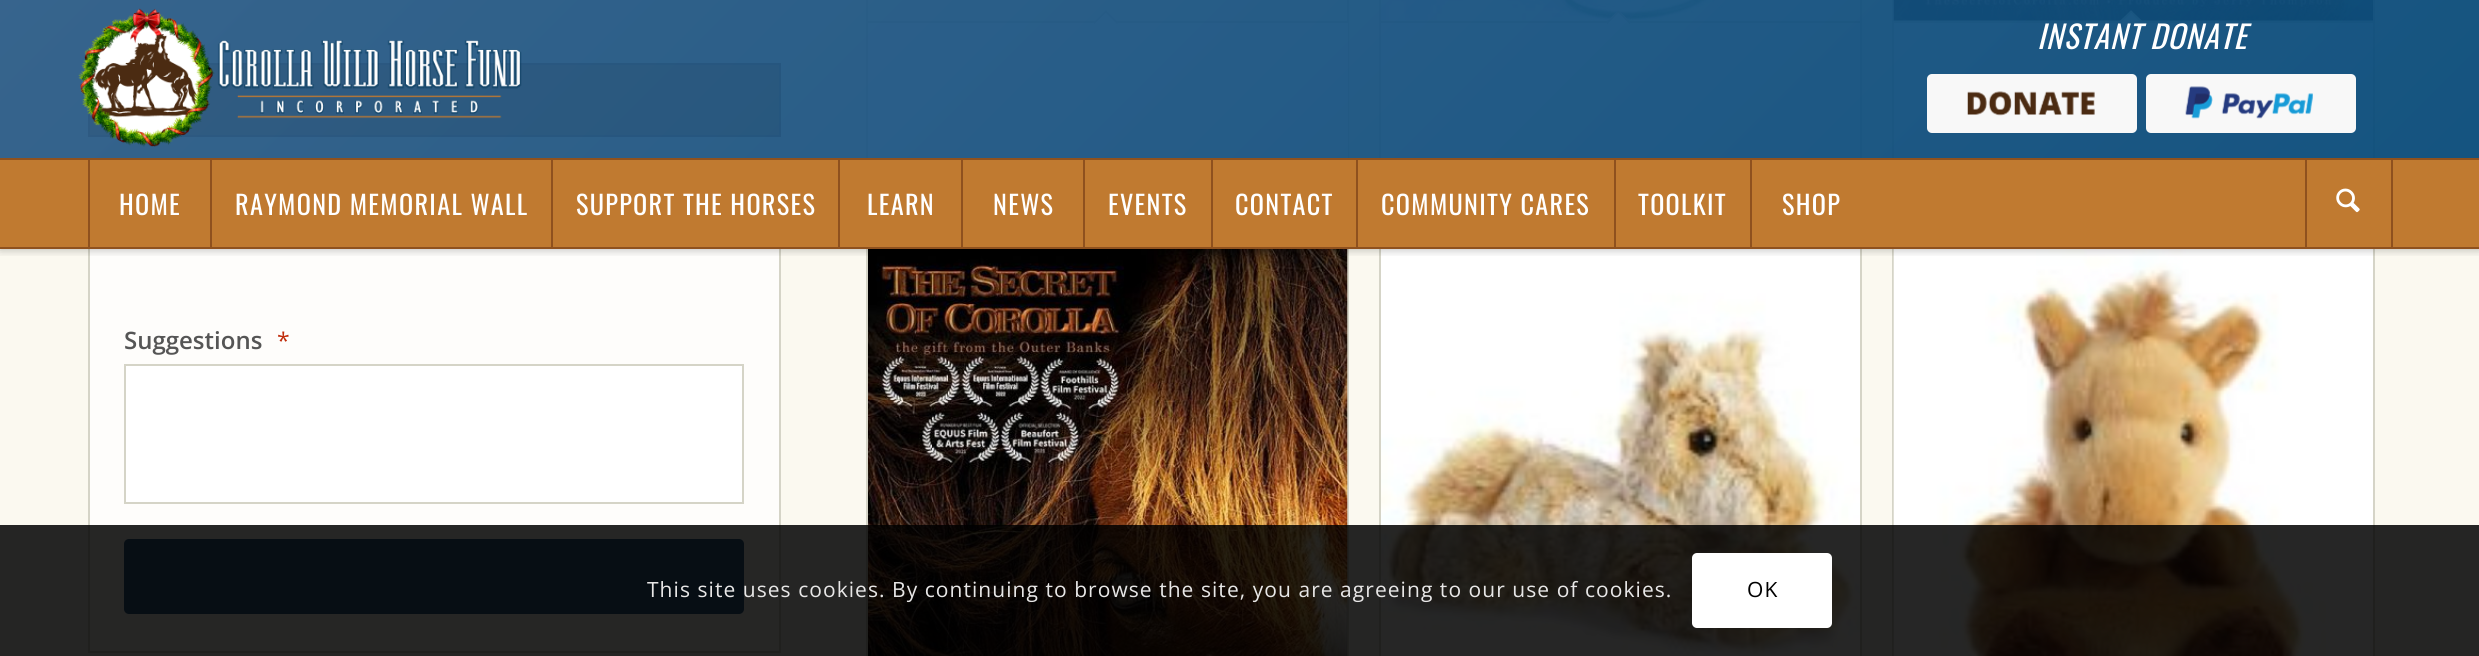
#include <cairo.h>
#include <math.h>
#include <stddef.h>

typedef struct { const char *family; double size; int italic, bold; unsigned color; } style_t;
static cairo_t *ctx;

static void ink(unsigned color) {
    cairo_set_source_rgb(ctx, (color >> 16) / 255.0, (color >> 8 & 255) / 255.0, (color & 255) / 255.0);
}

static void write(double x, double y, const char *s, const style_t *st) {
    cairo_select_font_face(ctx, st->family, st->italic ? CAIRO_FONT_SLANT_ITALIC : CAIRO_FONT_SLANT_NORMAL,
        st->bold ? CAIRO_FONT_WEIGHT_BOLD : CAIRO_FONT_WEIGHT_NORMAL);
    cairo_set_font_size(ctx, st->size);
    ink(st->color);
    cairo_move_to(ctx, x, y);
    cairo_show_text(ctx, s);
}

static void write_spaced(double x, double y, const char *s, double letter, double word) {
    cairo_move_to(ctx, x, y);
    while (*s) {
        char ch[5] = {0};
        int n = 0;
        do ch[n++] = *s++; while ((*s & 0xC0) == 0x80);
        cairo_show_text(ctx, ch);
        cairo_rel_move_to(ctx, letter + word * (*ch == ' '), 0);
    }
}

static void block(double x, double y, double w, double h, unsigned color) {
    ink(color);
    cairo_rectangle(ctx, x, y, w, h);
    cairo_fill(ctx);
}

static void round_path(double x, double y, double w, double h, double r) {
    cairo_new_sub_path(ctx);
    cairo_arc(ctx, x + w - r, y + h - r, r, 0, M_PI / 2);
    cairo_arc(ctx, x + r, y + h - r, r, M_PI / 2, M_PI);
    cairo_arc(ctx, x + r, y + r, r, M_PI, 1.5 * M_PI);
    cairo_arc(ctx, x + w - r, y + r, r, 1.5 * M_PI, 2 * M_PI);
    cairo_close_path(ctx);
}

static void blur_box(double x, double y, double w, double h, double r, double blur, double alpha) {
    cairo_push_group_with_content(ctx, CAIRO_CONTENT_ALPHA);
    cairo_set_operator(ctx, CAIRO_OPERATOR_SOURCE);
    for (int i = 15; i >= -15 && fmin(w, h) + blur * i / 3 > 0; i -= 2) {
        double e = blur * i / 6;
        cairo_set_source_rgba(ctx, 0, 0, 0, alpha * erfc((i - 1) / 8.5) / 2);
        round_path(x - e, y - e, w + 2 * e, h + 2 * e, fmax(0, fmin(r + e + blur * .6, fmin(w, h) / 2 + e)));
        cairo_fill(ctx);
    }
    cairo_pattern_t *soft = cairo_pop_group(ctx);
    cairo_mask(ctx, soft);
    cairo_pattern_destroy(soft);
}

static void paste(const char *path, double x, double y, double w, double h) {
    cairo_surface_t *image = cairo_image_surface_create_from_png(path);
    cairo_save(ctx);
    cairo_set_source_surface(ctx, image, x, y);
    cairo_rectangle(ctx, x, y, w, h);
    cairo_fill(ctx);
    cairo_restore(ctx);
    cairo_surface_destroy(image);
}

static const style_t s1 = {"Open Sans SemiBold", 24, 0, 0, 0x555555};
static const style_t s2 = {"Open Sans", 23, 0, 0, 0xc02b0a};

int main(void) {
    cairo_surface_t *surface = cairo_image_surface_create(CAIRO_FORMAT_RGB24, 2479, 656);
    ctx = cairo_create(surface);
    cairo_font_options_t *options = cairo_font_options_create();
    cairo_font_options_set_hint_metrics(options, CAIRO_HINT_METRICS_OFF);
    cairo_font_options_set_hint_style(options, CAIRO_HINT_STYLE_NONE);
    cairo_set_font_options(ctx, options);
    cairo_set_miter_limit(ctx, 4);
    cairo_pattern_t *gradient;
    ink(0xfbf9f0);
    cairo_paint(ctx);
    ink(0xc07a30);
    cairo_rectangle(ctx, 89, 64, 691, 72);
    cairo_fill_preserve(ctx);
    ink(0x8f511e);
    cairo_stroke(ctx);
    cairo_rectangle(ctx, 867, -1, 481, 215);
    ink(0xd5d4c7);
    cairo_stroke(ctx);
    block(868, 23, 480, 135, 0xffffff);
    block(868, 21, 480, 2, 0xd5d4c7);
    ink(0xffffff);
    cairo_new_path(ctx);
    cairo_move_to(ctx, 1106, 10.5);
    cairo_line_to(ctx, 1118, 22.5);
    cairo_line_to(ctx, 1106, 35);
    cairo_line_to(ctx, 1093.5, 22.5);
    cairo_close_path(ctx);
    cairo_fill(ctx);
    ink(0xd5d4c7);
    cairo_new_path(ctx);
    cairo_move_to(ctx, 1106, 10.5);
    cairo_line_to(ctx, 1118, 22.5);
    cairo_line_to(ctx, 1117, 24);
    cairo_line_to(ctx, 1104.5, 11.5);
    cairo_close_path(ctx);
    cairo_fill(ctx);
    cairo_new_path(ctx);
    cairo_move_to(ctx, 1106, 10.5);
    cairo_line_to(ctx, 1107, 11.5);
    cairo_line_to(ctx, 1094.5, 24);
    cairo_line_to(ctx, 1093.5, 22.5);
    cairo_close_path(ctx);
    cairo_fill(ctx);
    cairo_rectangle(ctx, 1380, -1, 481, 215);
    cairo_stroke(ctx);
    paste("pic5.png", 1381, 0, 479, 21);
    block(1381, 23, 479, 135, 0xffffff);
    block(1381, 21, 479, 2, 0xd5d4c7);
    ink(0xffffff);
    cairo_new_path(ctx);
    cairo_move_to(ctx, 1618.5, 10.5);
    cairo_line_to(ctx, 1631, 22.5);
    cairo_line_to(ctx, 1618.5, 35);
    cairo_line_to(ctx, 1606, 22.5);
    cairo_close_path(ctx);
    cairo_fill(ctx);
    ink(0xd5d4c7);
    cairo_new_path(ctx);
    cairo_move_to(ctx, 1618.5, 10.5);
    cairo_line_to(ctx, 1631, 22.5);
    cairo_line_to(ctx, 1629.5, 24);
    cairo_line_to(ctx, 1617, 11.5);
    cairo_close_path(ctx);
    cairo_fill(ctx);
    cairo_new_path(ctx);
    cairo_move_to(ctx, 1618.5, 10.5);
    cairo_line_to(ctx, 1619.5, 11.5);
    cairo_line_to(ctx, 1607.5, 24);
    cairo_line_to(ctx, 1606, 22.5);
    cairo_close_path(ctx);
    cairo_fill(ctx);
    cairo_rectangle(ctx, 1893, -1, 481, 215);
    cairo_stroke(ctx);
    paste("pic6.png", 1893, 0, 480, 21);
    block(1894, 23, 479, 135, 0xffffff);
    block(1894, 21, 479, 2, 0xd5d4c7);
    ink(0xffffff);
    cairo_new_path(ctx);
    cairo_move_to(ctx, 2131, 10.5);
    cairo_line_to(ctx, 2143.5, 22.5);
    cairo_line_to(ctx, 2131, 35);
    cairo_line_to(ctx, 2118.5, 22.5);
    cairo_close_path(ctx);
    cairo_fill(ctx);
    ink(0xd5d4c7);
    cairo_new_path(ctx);
    cairo_move_to(ctx, 2131, 10.5);
    cairo_line_to(ctx, 2143.5, 22.5);
    cairo_line_to(ctx, 2142, 24);
    cairo_line_to(ctx, 2130, 11.5);
    cairo_close_path(ctx);
    cairo_fill(ctx);
    cairo_new_path(ctx);
    cairo_move_to(ctx, 2131, 10.5);
    cairo_line_to(ctx, 2132.5, 11.5);
    cairo_line_to(ctx, 2120, 24);
    cairo_line_to(ctx, 2118.5, 22.5);
    cairo_close_path(ctx);
    cairo_fill(ctx);
    gradient = cairo_pattern_create_linear(542, -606, 1938, 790);
    cairo_pattern_add_color_stop_rgba(gradient, 0, 0.176, 0.361, 0.533, 0.95);
    cairo_pattern_add_color_stop_rgba(gradient, 1, 0.027, 0.29, 0.475, 0.95);
    cairo_set_source(ctx, gradient);
    cairo_pattern_destroy(gradient);
    cairo_rectangle(ctx, 0, 0, 2479, 158);
    cairo_fill(ctx);
    block(90, 249, 689, 402, 0xfefdfb);
    cairo_rectangle(ctx, 89, 166, 691, 486);
    ink(0xd5d4c7);
    cairo_stroke(ctx);
    cairo_rectangle(ctx, 867, 246, 481, 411);
    cairo_stroke(ctx);
    paste("pic7.png", 868, 249, 480, 407);
    cairo_rectangle(ctx, 1380, 246, 481, 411);
    cairo_stroke(ctx);
    paste("pic8.png", 1381, 249, 479, 407);
    cairo_rectangle(ctx, 1893, 246, 481, 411);
    cairo_stroke(ctx);
    paste("pic9.png", 1893, 249, 480, 407);
    cairo_save(ctx);
    cairo_rectangle(ctx, 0, 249, 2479, 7);
    cairo_clip(ctx);
    ink(0x000000);
    blur_box(0, -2, 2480, 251, 0, 5, 0.3);
    cairo_restore(ctx);
    block(0, 247, 2479, 2, 0x8f511e);
    paste("pic1.png", 78, 8, 444, 139);
    cairo_select_font_face(ctx, "Oswald", CAIRO_FONT_SLANT_ITALIC, CAIRO_FONT_WEIGHT_NORMAL);
    cairo_set_font_size(ctx, 31.5);
    ink(0xffffff);
    write_spaced(2037, 49, "INSTANT DONATE", 1, 0);
    ink(0xf8f8f8);
    round_path(1927, 74, 210, 59, 5);
    cairo_fill(ctx);
    paste("pic2.png", 1967, 91, 128, 25);
    round_path(2146, 74, 210, 59, 5);
    cairo_fill(ctx);
    paste("pic3.png", 2185, 86, 128, 33);
    block(0, 160, 2479, 87, 0xc07a30);
    block(0, 158, 2479, 2, 0x8f511e);
    block(88, 159, 2, 88, 0x8f511e);
    cairo_select_font_face(ctx, "Oswald", CAIRO_FONT_SLANT_NORMAL, CAIRO_FONT_WEIGHT_NORMAL);
    cairo_set_font_size(ctx, 26.25);
    ink(0xffffff);
    write_spaced(119, 215, "HOME", 1.3, 0);
    block(210, 159, 2, 88, 0x8f511e);
    ink(0xffffff);
    write_spaced(235, 215, "RAYMOND MEMORIAL WALL", 1.3, 0);
    block(551, 159, 2, 88, 0x8f511e);
    ink(0xffffff);
    write_spaced(576, 215, "SUPPORT THE HORSES", 1.3, 0);
    block(838, 159, 2, 88, 0x8f511e);
    ink(0xffffff);
    write_spaced(867, 215, "LEARN", 1.3, 0);
    block(961, 159, 2, 88, 0x8f511e);
    ink(0xffffff);
    write_spaced(993, 215, "NEWS", 1.3, 0);
    block(1083, 159, 2, 88, 0x8f511e);
    ink(0xffffff);
    write_spaced(1108, 215, "EVENTS", 1.3, 0);
    block(1211, 159, 2, 88, 0x8f511e);
    ink(0xffffff);
    write_spaced(1235, 215, "CONTACT", 1.3, 0);
    block(1356, 159, 2, 88, 0x8f511e);
    ink(0xffffff);
    write_spaced(1381, 215, "COMMUNITY CARES", 1.3, 0);
    block(1614, 159, 2, 88, 0x8f511e);
    ink(0xffffff);
    write_spaced(1638, 215, "TOOLKIT", 1.3, 0);
    block(1750, 159, 2, 88, 0x8f511e);
    ink(0xffffff);
    write_spaced(1782, 215, "SHOP", 1.3, 0);
    block(2391, 159, 2, 88, 0x8f511e);
    block(2305, 159, 2, 88, 0x8f511e);
    paste("pic4.png", 2336, 188, 24, 25);
    write(124, 349, "Suggestions", &s1);
    write(277, 349, "*", &s2);
    ink(0xffffff);
    cairo_rectangle(ctx, 125, 365, 618, 138);
    cairo_fill_preserve(ctx);
    ink(0xd5d4c7);
    cairo_stroke(ctx);
    ink(0x2d5c88);
    round_path(124, 539, 620, 75, 5);
    cairo_fill(ctx);
    cairo_set_source_rgba(ctx, 0, 0, 0, 0.85);
    cairo_rectangle(ctx, 0, 525, 2479, 131);
    cairo_fill(ctx);
    cairo_set_font_size(ctx, 21);
    ink(0xe8e7e7);
    write_spaced(647, 597, "This site uses cookies. By continuing to browse the site, you are agreeing to our use of cookies.", 1.05, 0);
    ink(0xffffff);
    round_path(1692, 553, 140, 75, 5);
    cairo_fill(ctx);
    ink(0x000000);
    write_spaced(1747, 597, "OK", 1.05, 0);
    cairo_surface_write_to_png(surface, "screenshot.png");
    cairo_font_options_destroy(options);
    cairo_destroy(ctx);
    cairo_surface_destroy(surface);
    return 0;
}
